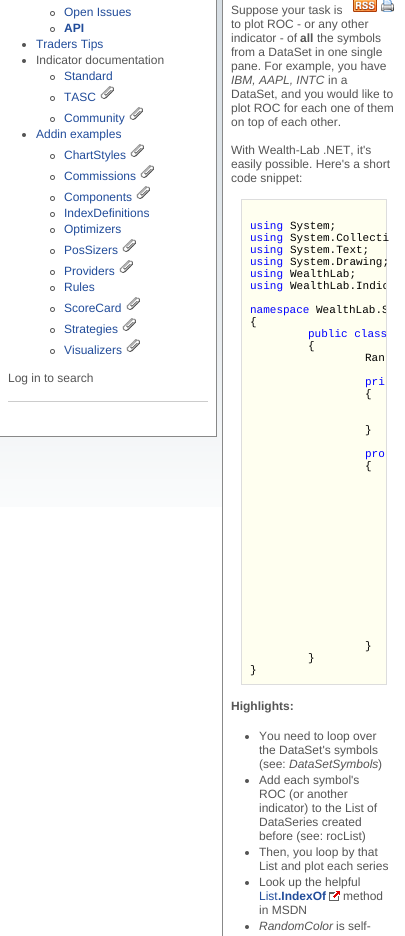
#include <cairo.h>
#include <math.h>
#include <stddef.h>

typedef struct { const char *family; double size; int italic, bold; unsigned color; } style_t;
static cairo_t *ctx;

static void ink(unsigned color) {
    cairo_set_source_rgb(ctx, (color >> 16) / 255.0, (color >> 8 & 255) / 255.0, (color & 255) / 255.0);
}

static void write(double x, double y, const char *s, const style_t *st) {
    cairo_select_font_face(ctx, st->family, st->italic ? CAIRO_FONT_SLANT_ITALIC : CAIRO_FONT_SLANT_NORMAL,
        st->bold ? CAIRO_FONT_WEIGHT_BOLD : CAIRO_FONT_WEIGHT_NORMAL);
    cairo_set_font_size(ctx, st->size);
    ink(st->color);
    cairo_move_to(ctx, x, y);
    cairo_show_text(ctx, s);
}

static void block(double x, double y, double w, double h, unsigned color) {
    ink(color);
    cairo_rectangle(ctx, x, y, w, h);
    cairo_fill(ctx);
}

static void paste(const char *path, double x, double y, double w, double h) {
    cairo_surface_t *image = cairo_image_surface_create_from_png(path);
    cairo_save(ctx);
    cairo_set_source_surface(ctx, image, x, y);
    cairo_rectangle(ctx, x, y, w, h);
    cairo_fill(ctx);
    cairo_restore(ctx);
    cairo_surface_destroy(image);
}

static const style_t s1 = {"Liberation Sans", 12, 0, 0, 0x214c9a};
static const style_t s2 = {"Liberation Sans", 12, 0, 1, 0x214c9a};
static const style_t s3 = {"Liberation Sans", 12, 0, 0, 0x555555};
static const style_t s4 = {"Liberation Sans", 12, 0, 1, 0x555555};
static const style_t s5 = {"Liberation Sans", 12, 1, 0, 0x555555};
static const style_t s6 = {"Liberation Mono", 11, 0, 0, 0x0000ff};
static const style_t s7 = {"Liberation Mono", 11, 0, 0, 0x000000};

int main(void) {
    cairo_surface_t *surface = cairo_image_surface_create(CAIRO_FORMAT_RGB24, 405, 936);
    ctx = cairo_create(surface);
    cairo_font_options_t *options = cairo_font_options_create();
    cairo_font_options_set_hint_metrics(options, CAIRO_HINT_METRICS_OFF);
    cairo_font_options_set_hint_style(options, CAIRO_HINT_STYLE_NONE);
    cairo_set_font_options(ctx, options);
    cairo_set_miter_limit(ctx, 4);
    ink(0xffffff);
    cairo_paint(ctx);
    paste("pic1.png", 0, 0, 222, 507);
    block(0, 0, 216, 436, 0xffffff);
    block(216, 0, 1, 437, 0x888888);
    block(0, 436, 217, 1, 0x888888);
    cairo_arc(ctx, 52.5, 13.5, 2, 0, 2 * M_PI);
    ink(0x555555);
    cairo_set_line_width(ctx, 1);
    cairo_stroke(ctx);
    write(64, 16, "Open Issues", &s1);
    cairo_new_path(ctx);
    cairo_arc(ctx, 52.5, 29.5, 2, 0, 2 * M_PI);
    ink(0x555555);
    cairo_stroke(ctx);
    write(64, 32, "API", &s2);
    ink(0x555555);
    cairo_new_path(ctx);
    cairo_arc(ctx, 24, 45, 2, 0, 2 * M_PI);
    cairo_fill(ctx);
    write(36, 48, "Traders Tips", &s1);
    ink(0x555555);
    cairo_new_path(ctx);
    cairo_arc(ctx, 24, 61, 2, 0, 2 * M_PI);
    cairo_fill(ctx);
    write(36, 64, "Indicator documentation", &s3);
    cairo_new_path(ctx);
    cairo_arc(ctx, 52.5, 77.5, 2, 0, 2 * M_PI);
    cairo_stroke(ctx);
    write(64, 80, "Standard", &s1);
    cairo_new_path(ctx);
    cairo_arc(ctx, 52.5, 98.5, 2, 0, 2 * M_PI);
    ink(0x555555);
    cairo_stroke(ctx);
    write(64, 101, "TASC", &s1);
    paste("pic2.png", 100, 86, 14, 13);
    cairo_arc(ctx, 52.5, 119.5, 2, 0, 2 * M_PI);
    ink(0x555555);
    cairo_stroke(ctx);
    write(64, 122, "Community", &s1);
    paste("pic2.png", 129, 107, 14, 13);
    ink(0x555555);
    cairo_arc(ctx, 24, 135, 2, 0, 2 * M_PI);
    cairo_fill(ctx);
    write(36, 138, "Addin examples", &s1);
    cairo_new_path(ctx);
    cairo_arc(ctx, 52.5, 156.5, 2, 0, 2 * M_PI);
    ink(0x555555);
    cairo_stroke(ctx);
    write(64, 159, "ChartStyles", &s1);
    paste("pic2.png", 130, 144, 14, 13);
    cairo_arc(ctx, 52.5, 177.5, 2, 0, 2 * M_PI);
    ink(0x555555);
    cairo_stroke(ctx);
    write(64, 180, "Commissions", &s1);
    paste("pic2.png", 140, 165, 14, 13);
    cairo_arc(ctx, 52.5, 198.5, 2, 0, 2 * M_PI);
    ink(0x555555);
    cairo_stroke(ctx);
    write(64, 201, "Components", &s1);
    paste("pic2.png", 136, 186, 14, 13);
    cairo_arc(ctx, 52.5, 214.5, 2, 0, 2 * M_PI);
    ink(0x555555);
    cairo_stroke(ctx);
    write(64, 217, "IndexDefinitions", &s1);
    cairo_new_path(ctx);
    cairo_arc(ctx, 52.5, 230.5, 2, 0, 2 * M_PI);
    ink(0x555555);
    cairo_stroke(ctx);
    write(64, 233, "Optimizers", &s1);
    cairo_new_path(ctx);
    cairo_arc(ctx, 52.5, 251.5, 2, 0, 2 * M_PI);
    ink(0x555555);
    cairo_stroke(ctx);
    write(64, 254, "PosSizers", &s1);
    paste("pic2.png", 122, 239, 14, 13);
    cairo_arc(ctx, 52.5, 272.5, 2, 0, 2 * M_PI);
    ink(0x555555);
    cairo_stroke(ctx);
    write(64, 275, "Providers", &s1);
    paste("pic2.png", 119, 260, 14, 13);
    cairo_arc(ctx, 52.5, 288.5, 2, 0, 2 * M_PI);
    ink(0x555555);
    cairo_stroke(ctx);
    write(64, 291, "Rules", &s1);
    cairo_new_path(ctx);
    cairo_arc(ctx, 52.5, 309.5, 2, 0, 2 * M_PI);
    ink(0x555555);
    cairo_stroke(ctx);
    write(64, 312, "ScoreCard", &s1);
    paste("pic2.png", 126, 297, 14, 13);
    cairo_arc(ctx, 52.5, 330.5, 2, 0, 2 * M_PI);
    ink(0x555555);
    cairo_stroke(ctx);
    write(64, 333, "Strategies", &s1);
    paste("pic2.png", 122, 318, 14, 13);
    cairo_arc(ctx, 52.5, 351.5, 2, 0, 2 * M_PI);
    ink(0x555555);
    cairo_stroke(ctx);
    write(64, 354, "Visualizers", &s1);
    paste("pic2.png", 126, 339, 14, 13);
    write(8, 382, "Log in to search", &s3);
    block(8, 401, 200, 1, 0xcccccc);
    block(222, 0, 1, 936, 0x888888);
    paste("pic3.png", 353, 0, 24, 12);
    paste("pic4.png", 381, 0, 13, 12);
    write(231, 14, "Suppose your task is", &s3);
    write(231, 28, "to plot ROC - or any other", &s3);
    write(231, 42, "indicator - of", &s3);
    write(300, 42, "all", &s4);
    write(317, 42, "the symbols", &s3);
    write(231, 56, "from a DataSet in one single", &s3);
    write(231, 70, "pane. For example, you have", &s3);
    write(231, 84, "IBM, AAPL, INTC", &s5);
    write(328, 84, "in a", &s3);
    write(231, 98, "DataSet, and you would like to", &s3);
    write(231, 112, "plot ROC for each one of them", &s3);
    write(231, 126, "on top of each other.", &s3);
    write(231, 154, "With Wealth-Lab .NET, it's", &s3);
    write(231, 168, "easily possible. Here's a short", &s3);
    write(231, 182, "code snippet:", &s3);
    ink(0xfffff0);
    cairo_rectangle(ctx, 241.5, 199.5, 145, 485);
    cairo_fill_preserve(ctx);
    ink(0xdddddd);
    cairo_stroke(ctx);
    write(250, 229, "using", &s6);
    write(290, 229, "System;", &s7);
    write(250, 241, "using", &s6);
    write(290, 241, "System.Collecti", &s7);
    write(250, 253, "using", &s6);
    write(290, 253, "System.Text;", &s7);
    write(250, 265, "using", &s6);
    write(290, 265, "System.Drawing;", &s7);
    write(250, 277, "using", &s6);
    write(290, 277, "WealthLab;", &s7);
    write(250, 289, "using", &s6);
    cairo_save(ctx);
    cairo_rectangle(ctx, 242, 200, 144, 484);
    cairo_clip(ctx);
    write(290, 289, "WealthLab.Indic", &s7);
    cairo_restore(ctx);
    write(250, 313, "namespace", &s6);
    cairo_save(ctx);
    cairo_rectangle(ctx, 242, 200, 144, 484);
    cairo_clip(ctx);
    write(316, 313, "WealthLab.S", &s7);
    cairo_restore(ctx);
    write(250, 325, "{", &s7);
    write(308, 337, "public class", &s6);
    write(308, 349, "{", &s7);
    write(365, 361, "Ran", &s7);
    write(365, 385, "pri", &s6);
    write(365, 397, "{", &s7);
    write(365, 433, "}", &s7);
    write(365, 457, "pro", &s6);
    write(365, 469, "{", &s7);
    write(365, 649, "}", &s7);
    write(308, 661, "}", &s7);
    write(250, 673, "}", &s7);
    write(231, 710, "Highlights:", &s4);
    cairo_new_path(ctx);
    cairo_arc(ctx, 247, 737, 2, 0, 2 * M_PI);
    cairo_fill(ctx);
    write(259, 740, "You need to loop over", &s3);
    write(259, 754, "the DataSet's symbols", &s3);
    write(259, 768, "(see:", &s3);
    write(289, 768, "DataSetSymbols", &s5);
    write(378, 768, ")", &s3);
    cairo_new_path(ctx);
    cairo_arc(ctx, 247, 781, 2, 0, 2 * M_PI);
    cairo_fill(ctx);
    write(259, 784, "Add each symbol's", &s3);
    write(259, 798, "ROC (or another", &s3);
    write(259, 812, "indicator) to the List of", &s3);
    write(259, 826, "DataSeries created", &s3);
    write(259, 840, "before (see: rocList)", &s3);
    cairo_new_path(ctx);
    cairo_arc(ctx, 247, 853, 2, 0, 2 * M_PI);
    cairo_fill(ctx);
    write(259, 856, "Then, you loop by that", &s3);
    write(259, 870, "List and plot each series", &s3);
    cairo_new_path(ctx);
    cairo_arc(ctx, 247, 883, 2, 0, 2 * M_PI);
    cairo_fill(ctx);
    write(259, 886, "Look up the helpful", &s3);
    write(259, 900, "List", &s1);
    write(278, 900, ".IndexOf", &s2);
    paste("pic5.png", 329, 891, 11, 10);
    write(343, 900, "method", &s3);
    write(259, 914, "in MSDN", &s3);
    cairo_new_path(ctx);
    cairo_arc(ctx, 247, 927, 2, 0, 2 * M_PI);
    cairo_fill(ctx);
    write(259, 930, "RandomColor", &s5);
    write(336, 930, "is self-", &s3);
    cairo_surface_write_to_png(surface, "screenshot.png");
    cairo_font_options_destroy(options);
    cairo_destroy(ctx);
    cairo_surface_destroy(surface);
    return 0;
}
